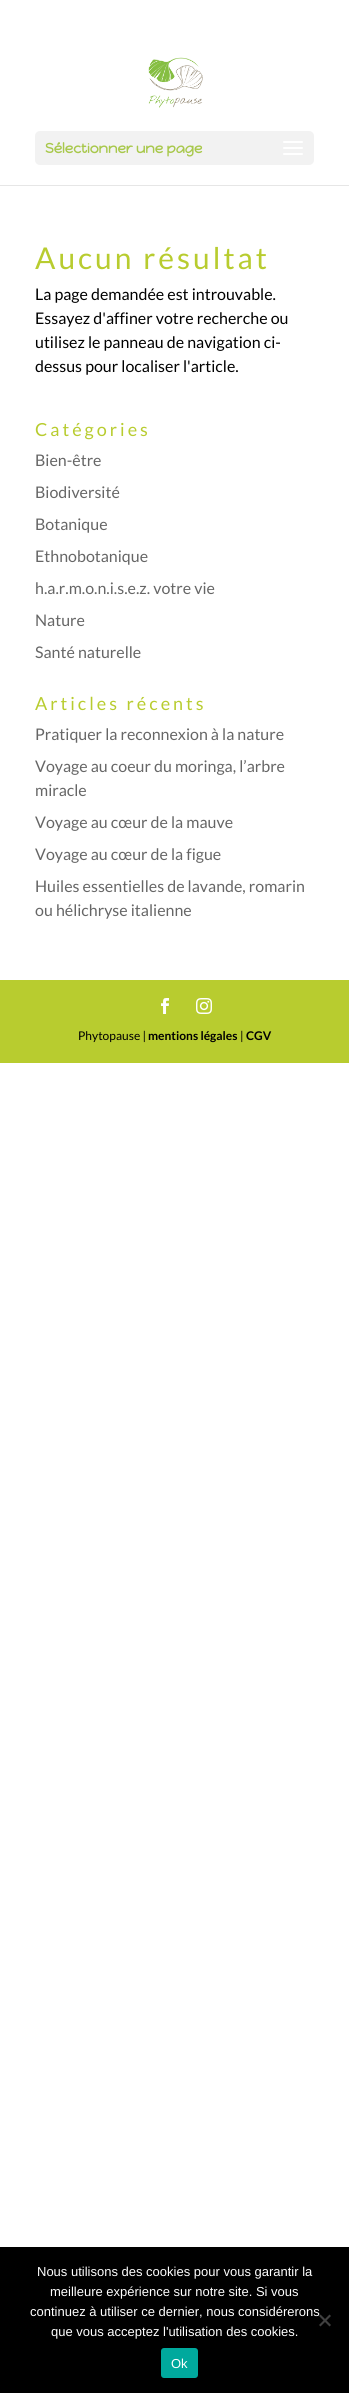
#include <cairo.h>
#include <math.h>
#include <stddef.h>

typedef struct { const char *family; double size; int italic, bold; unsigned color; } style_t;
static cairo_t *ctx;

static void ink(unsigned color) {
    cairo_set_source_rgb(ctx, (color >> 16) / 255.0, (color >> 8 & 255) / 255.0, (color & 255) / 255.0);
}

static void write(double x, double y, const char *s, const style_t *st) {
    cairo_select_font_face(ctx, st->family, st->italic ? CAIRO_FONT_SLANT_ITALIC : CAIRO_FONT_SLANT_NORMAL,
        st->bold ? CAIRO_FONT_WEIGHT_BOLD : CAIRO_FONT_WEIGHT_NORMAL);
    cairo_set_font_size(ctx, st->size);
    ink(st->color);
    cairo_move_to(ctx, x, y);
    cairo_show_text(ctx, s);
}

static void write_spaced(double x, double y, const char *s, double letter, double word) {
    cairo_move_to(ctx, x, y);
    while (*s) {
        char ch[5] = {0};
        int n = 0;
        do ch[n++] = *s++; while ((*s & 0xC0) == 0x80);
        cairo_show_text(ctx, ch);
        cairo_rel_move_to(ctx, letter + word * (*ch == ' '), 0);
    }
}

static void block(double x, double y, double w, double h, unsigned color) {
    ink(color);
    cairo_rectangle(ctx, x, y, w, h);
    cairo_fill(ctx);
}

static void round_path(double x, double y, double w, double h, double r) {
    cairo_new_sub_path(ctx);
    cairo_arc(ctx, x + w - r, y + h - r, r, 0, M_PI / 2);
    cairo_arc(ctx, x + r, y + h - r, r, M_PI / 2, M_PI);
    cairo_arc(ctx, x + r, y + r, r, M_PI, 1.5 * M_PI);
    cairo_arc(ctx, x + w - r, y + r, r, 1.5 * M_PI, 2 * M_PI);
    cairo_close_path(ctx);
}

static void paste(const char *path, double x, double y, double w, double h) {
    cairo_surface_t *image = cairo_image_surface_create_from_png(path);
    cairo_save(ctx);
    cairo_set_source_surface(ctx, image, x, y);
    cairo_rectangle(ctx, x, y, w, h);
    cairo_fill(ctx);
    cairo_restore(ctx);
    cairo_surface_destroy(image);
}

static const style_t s1 = {"Happy Monkey", 14, 0, 1, 0xa8c84b};
static const style_t s2 = {"Lato", 16, 0, 0, 0x000000};
static const style_t s3 = {"Lato", 16, 0, 0, 0x666666};
static const style_t s4 = {"Lato", 12, 0, 0, 0x000000};
static const style_t s5 = {"Lato", 12, 0, 1, 0x000000};
static const style_t s6 = {"Liberation Sans", 13, 0, 0, 0xffffff};

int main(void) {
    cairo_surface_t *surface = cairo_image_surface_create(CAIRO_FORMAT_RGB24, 349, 2393);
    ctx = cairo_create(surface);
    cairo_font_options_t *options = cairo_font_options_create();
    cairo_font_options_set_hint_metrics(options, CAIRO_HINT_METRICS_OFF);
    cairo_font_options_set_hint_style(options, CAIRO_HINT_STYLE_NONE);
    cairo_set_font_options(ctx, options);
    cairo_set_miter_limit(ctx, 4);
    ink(0xffffff);
    cairo_paint(ctx);
    block(0, 185, 349, 1, 0xe6e6e6);
    paste("pic1.png", 148, 57, 55, 51);
    ink(0xf2f2f2);
    round_path(35, 131, 279, 34, 5);
    cairo_fill(ctx);
    write(45, 153, "Sélectionner une page", &s1);
    paste("pic2.png", 283, 141, 20, 14);
    cairo_select_font_face(ctx, "Lato", CAIRO_FONT_SLANT_NORMAL, CAIRO_FONT_WEIGHT_NORMAL);
    cairo_set_font_size(ctx, 30);
    ink(0xb8cc2f);
    write_spaced(35, 269, "Aucun résultat", 3, 0);
    write(35, 300, "La page demandée est introuvable.", &s2);
    write(35, 324, "Essayez d'affiner votre recherche ou", &s2);
    write(35, 348, "utilisez le panneau de navigation ci-", &s2);
    write(35, 372, "dessus pour localiser l'article.", &s2);
    cairo_set_font_size(ctx, 18);
    ink(0xb8cc2f);
    write_spaced(35, 436, "Catégories", 3, 0);
    write(35, 466, "Bien-être", &s3);
    write(35, 498, "Biodiversité", &s3);
    write(35, 530, "Botanique", &s3);
    write(35, 562, "Ethnobotanique", &s3);
    write(35, 594, "h.a.r.m.o.n.i.s.e.z. votre vie", &s3);
    write(35, 626, "Nature", &s3);
    write(35, 658, "Santé naturelle", &s3);
    cairo_set_font_size(ctx, 18);
    ink(0xb8cc2f);
    write_spaced(35, 710, "Articles récents", 3, 0);
    write(35, 740, "Pratiquer la reconnexion à la nature", &s3);
    write(35, 772, "Voyage au coeur du moringa, l’arbre", &s3);
    write(35, 796, "miracle", &s3);
    write(35, 828, "Voyage au cœur de la mauve", &s3);
    write(35, 860, "Voyage au cœur de la figue", &s3);
    write(35, 892, "Huiles essentielles de lavande, romarin", &s3);
    write(35, 916, "ou hélichryse italienne", &s3);
    block(0, 980, 349, 83, 0xb8cc2f);
    paste("pic3.png", 161, 998, 8, 16);
    paste("pic4.png", 196, 998, 16, 16);
    write(78, 1040, "Phytopause |", &s4);
    write(148, 1040, "mentions légales", &s5);
    write(240, 1040, "|", &s4);
    write(246, 1040, "CGV", &s5);
    block(0, 2247, 349, 146, 0x000000);
    write(37, 2276, "Nous utilisons des cookies pour vous garantir la", &s6);
    write(50, 2296, "meilleure expérience sur notre site. Si vous", &s6);
    write(30, 2316, "continuez à utiliser ce dernier, nous considérerons", &s6);
    write(51, 2336, "que vous acceptez l'utilisation des cookies.", &s6);
    ink(0x404040);
    cairo_new_path(ctx);
    cairo_move_to(ctx, 329.5, 2314.5);
    cairo_line_to(ctx, 331, 2316);
    cairo_line_to(ctx, 320.5, 2326.5);
    cairo_line_to(ctx, 319, 2325);
    cairo_close_path(ctx);
    cairo_fill(ctx);
    cairo_new_path(ctx);
    cairo_move_to(ctx, 319, 2316);
    cairo_line_to(ctx, 320.5, 2314.5);
    cairo_line_to(ctx, 331, 2325);
    cairo_line_to(ctx, 329.5, 2326.5);
    cairo_close_path(ctx);
    cairo_fill(ctx);
    ink(0x00a99d);
    round_path(161, 2348, 37, 30, 3);
    cairo_fill(ctx);
    write(171, 2368, "Ok", &s6);
    cairo_surface_write_to_png(surface, "screenshot.png");
    cairo_font_options_destroy(options);
    cairo_destroy(ctx);
    cairo_surface_destroy(surface);
    return 0;
}
